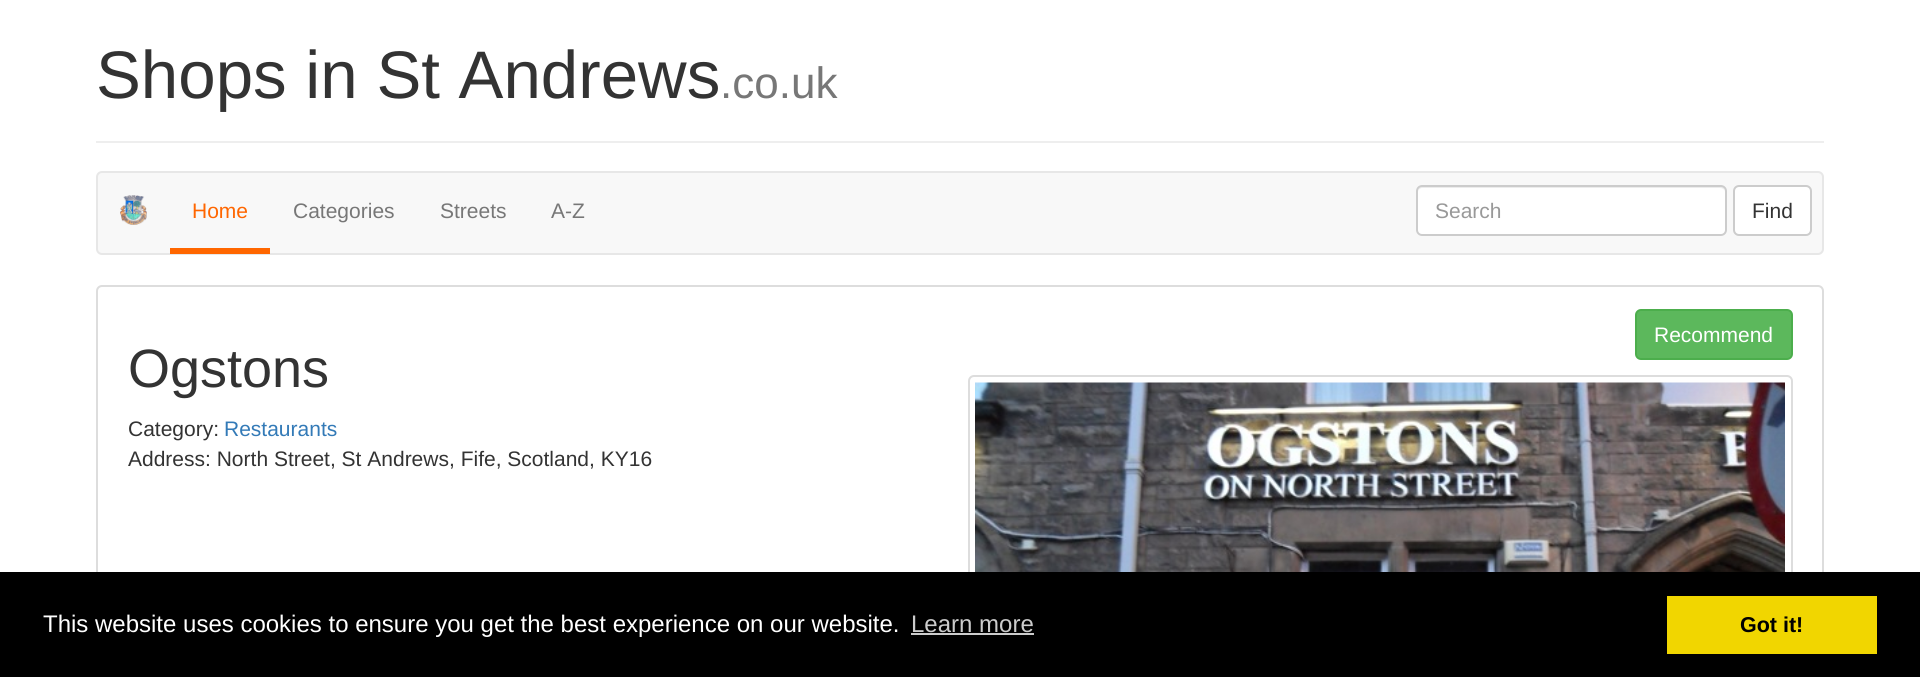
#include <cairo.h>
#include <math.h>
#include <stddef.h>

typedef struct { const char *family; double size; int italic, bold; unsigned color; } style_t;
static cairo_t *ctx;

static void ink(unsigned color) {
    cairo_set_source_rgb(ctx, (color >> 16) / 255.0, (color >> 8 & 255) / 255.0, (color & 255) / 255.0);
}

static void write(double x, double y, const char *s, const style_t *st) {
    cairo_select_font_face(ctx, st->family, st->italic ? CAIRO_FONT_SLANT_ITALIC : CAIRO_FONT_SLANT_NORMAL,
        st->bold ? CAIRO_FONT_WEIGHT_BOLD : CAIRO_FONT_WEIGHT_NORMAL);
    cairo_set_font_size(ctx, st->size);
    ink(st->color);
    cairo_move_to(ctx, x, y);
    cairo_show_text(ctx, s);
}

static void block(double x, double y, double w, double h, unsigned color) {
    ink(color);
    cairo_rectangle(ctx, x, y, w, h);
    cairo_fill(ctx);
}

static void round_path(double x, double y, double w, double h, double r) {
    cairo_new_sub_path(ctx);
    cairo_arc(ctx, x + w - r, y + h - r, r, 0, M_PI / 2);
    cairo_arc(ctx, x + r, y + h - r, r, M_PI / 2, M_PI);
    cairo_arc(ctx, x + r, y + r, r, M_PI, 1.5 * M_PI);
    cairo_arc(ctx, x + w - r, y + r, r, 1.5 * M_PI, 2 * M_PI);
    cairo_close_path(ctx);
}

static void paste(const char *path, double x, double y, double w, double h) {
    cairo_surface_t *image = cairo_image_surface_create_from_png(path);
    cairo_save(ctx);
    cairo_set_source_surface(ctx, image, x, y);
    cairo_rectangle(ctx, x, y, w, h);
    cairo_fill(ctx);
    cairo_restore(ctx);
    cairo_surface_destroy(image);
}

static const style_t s1 = {"Liberation Sans", 67.25, 0, 0, 0x333333};
static const style_t s2 = {"Liberation Sans", 44, 0, 0, 0x777777};
static const style_t s3 = {"Liberation Sans", 21, 0, 0, 0xff6600};
static const style_t s4 = {"Liberation Sans", 21, 0, 0, 0x777777};
static const style_t s5 = {"Liberation Sans", 21, 0, 0, 0x999999};
static const style_t s6 = {"Liberation Sans", 21, 0, 0, 0x333333};
static const style_t s7 = {"Liberation Sans", 21, 0, 0, 0xffffff};
static const style_t s8 = {"Liberation Sans", 54, 0, 0, 0x333333};
static const style_t s9 = {"Liberation Sans", 21, 0, 0, 0x337ab7};
static const style_t s10 = {"Liberation Sans", 24, 0, 0, 0xffffff};
static const style_t s11 = {"Liberation Sans", 24, 0, 0, 0xcccccc};
static const style_t s12 = {"Liberation Sans", 21.5, 0, 1, 0x000000};

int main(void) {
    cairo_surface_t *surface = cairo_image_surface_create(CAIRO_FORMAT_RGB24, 1920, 677);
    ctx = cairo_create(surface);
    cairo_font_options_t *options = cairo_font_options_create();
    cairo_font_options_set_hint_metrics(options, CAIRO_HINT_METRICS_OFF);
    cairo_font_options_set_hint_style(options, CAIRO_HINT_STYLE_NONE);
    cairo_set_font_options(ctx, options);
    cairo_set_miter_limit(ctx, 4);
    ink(0xffffff);
    cairo_paint(ctx);
    block(96, 141, 1728, 2, 0xeeeeee);
    write(96, 98, "Shops in St Andrews", &s1);
    write(720, 98, ".co.uk", &s2);
    ink(0xf8f8f8);
    round_path(97, 172, 1726, 82, 5);
    cairo_fill_preserve(ctx);
    ink(0xe7e7e7);
    cairo_stroke(ctx);
    paste("pic1.png", 120, 195, 27, 30);
    block(170, 248, 100, 6, 0xff6600);
    write(192, 218, "Home", &s3);
    write(293, 218, "Categories", &s4);
    write(440, 218, "Streets", &s4);
    write(551, 218, "A-Z", &s4);
    ink(0xffffff);
    round_path(1416, 185, 311, 51, 6);
    cairo_fill(ctx);
    ink(0xececec);
    cairo_new_path(ctx);
    cairo_move_to(ctx, 1422, 188);
    cairo_line_to(ctx, 1720, 188);
    cairo_curve_to(ctx, 1723, 188, 1725, 190, 1725, 192);
    cairo_curve_to(ctx, 1725, 189, 1723, 186, 1720, 186);
    cairo_line_to(ctx, 1423, 186);
    cairo_curve_to(ctx, 1420, 186, 1418, 189, 1418, 192);
    cairo_curve_to(ctx, 1418, 190, 1420, 188, 1422, 188);
    cairo_close_path(ctx);
    cairo_fill(ctx);
    round_path(1417, 186, 309, 49, 5);
    ink(0xcccccc);
    cairo_stroke(ctx);
    write(1435, 218, "Search", &s5);
    ink(0xffffff);
    round_path(1734, 186, 77, 49, 5);
    cairo_fill_preserve(ctx);
    ink(0xcccccc);
    cairo_stroke(ctx);
    write(1752, 218, "Find", &s6);
    round_path(97, 286, 1726, 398, 5);
    ink(0xdddddd);
    cairo_stroke(ctx);
    ink(0x5cb85c);
    round_path(1636, 310, 156, 49, 5);
    cairo_fill_preserve(ctx);
    ink(0x4cae4c);
    cairo_stroke(ctx);
    write(1654, 342, "Recommend", &s7);
    round_path(969, 376, 823, 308, 5);
    ink(0xdddddd);
    cairo_stroke(ctx);
    paste("pic2.png", 975, 382, 810, 190);
    write(128, 387, "Ogstons", &s8);
    write(128, 436, "Category:", &s6);
    write(224, 436, "Restaurants", &s9);
    write(128, 466, "Address: North Street, St Andrews, Fife, Scotland, KY16", &s6);
    block(0, 572, 1920, 105, 0x000000);
    write(43, 632, "This website uses cookies to ensure you get the best experience on our website.", &s10);
    write(911, 632, "Learn more", &s11);
    block(911, 633, 123, 2, 0xcccccc);
    block(1667, 596, 210, 58, 0xf1d600);
    write(1740, 632, "Got it!", &s12);
    cairo_surface_write_to_png(surface, "screenshot.png");
    cairo_font_options_destroy(options);
    cairo_destroy(ctx);
    cairo_surface_destroy(surface);
    return 0;
}
